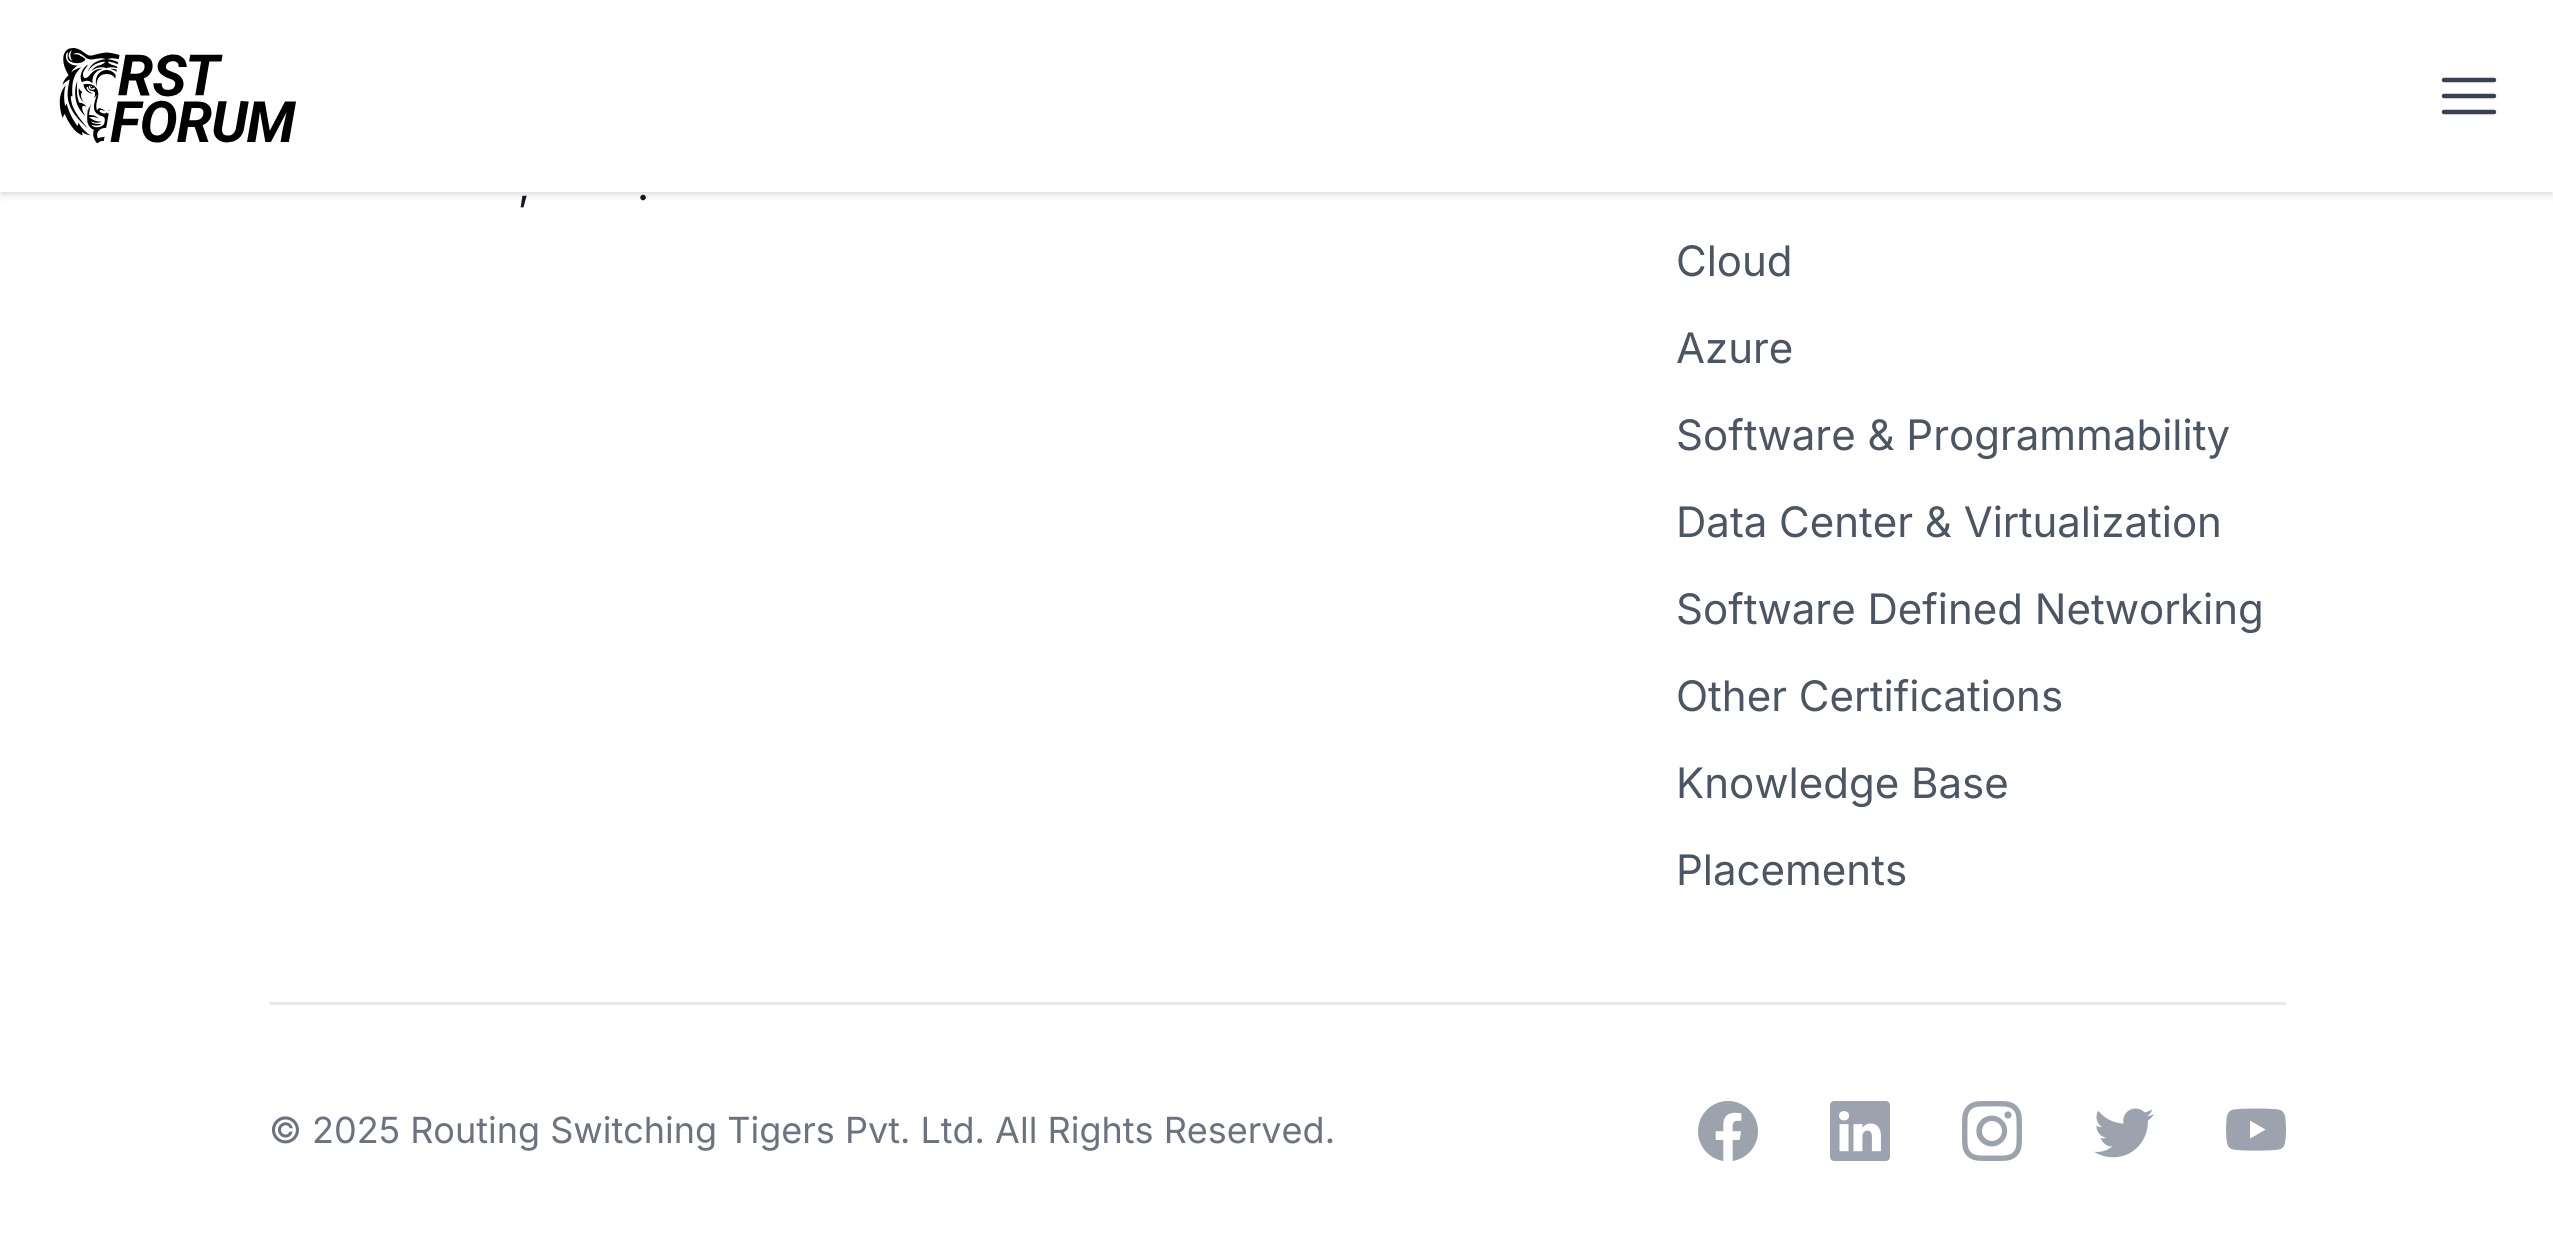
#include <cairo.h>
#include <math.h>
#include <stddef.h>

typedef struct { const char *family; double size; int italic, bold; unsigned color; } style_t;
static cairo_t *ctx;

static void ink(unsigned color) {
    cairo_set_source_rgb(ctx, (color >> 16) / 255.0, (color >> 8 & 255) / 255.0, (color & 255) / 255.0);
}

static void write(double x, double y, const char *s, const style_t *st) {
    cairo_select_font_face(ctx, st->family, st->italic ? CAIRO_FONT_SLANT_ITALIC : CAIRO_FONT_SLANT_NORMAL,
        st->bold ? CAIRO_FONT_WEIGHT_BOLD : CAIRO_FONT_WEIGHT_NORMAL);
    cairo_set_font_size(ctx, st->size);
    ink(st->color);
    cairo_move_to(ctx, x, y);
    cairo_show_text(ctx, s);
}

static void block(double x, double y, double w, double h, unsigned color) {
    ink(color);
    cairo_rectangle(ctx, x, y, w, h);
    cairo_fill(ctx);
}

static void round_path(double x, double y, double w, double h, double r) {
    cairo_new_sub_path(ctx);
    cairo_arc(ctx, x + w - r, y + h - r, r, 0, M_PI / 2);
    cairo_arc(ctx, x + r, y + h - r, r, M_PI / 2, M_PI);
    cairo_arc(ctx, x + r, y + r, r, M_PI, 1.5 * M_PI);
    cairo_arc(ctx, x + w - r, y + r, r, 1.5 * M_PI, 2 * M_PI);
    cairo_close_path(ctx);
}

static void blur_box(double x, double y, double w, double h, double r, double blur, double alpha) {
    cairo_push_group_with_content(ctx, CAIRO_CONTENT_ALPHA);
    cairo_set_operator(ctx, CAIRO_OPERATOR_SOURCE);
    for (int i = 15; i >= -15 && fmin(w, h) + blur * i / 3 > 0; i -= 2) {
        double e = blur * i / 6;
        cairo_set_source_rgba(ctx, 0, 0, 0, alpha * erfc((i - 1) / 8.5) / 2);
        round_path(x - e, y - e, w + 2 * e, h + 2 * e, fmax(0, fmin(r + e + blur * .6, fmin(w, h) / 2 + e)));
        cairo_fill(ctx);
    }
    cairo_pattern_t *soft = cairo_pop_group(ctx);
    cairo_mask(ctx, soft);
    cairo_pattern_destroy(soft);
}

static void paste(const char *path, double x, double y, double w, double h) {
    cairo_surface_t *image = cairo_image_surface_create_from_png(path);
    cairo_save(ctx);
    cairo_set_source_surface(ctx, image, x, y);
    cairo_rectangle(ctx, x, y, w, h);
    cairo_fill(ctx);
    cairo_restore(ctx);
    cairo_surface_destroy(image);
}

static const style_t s1 = {"Inter", 42, 0, 0, 0x111827};
static const style_t s2 = {"Inter", 42, 0, 0, 0x4b5563};
static const style_t s3 = {"Inter", 36, 0, 0, 0x6b7280};

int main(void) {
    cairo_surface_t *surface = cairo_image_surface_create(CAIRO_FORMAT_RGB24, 2553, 1256);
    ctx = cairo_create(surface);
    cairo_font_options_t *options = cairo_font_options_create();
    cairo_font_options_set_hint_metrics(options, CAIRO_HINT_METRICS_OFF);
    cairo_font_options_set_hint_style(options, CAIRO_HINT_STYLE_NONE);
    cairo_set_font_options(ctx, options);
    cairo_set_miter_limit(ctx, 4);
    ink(0xffffff);
    cairo_paint(ctx);
    ink(0x000000);
    blur_box(3, 6, 2547, 186, 0, 3, 0.1);
    blur_box(0, 3, 2553, 192, 0, 4.5, 0.1);
    block(0, 0, 2553, 192, 0xffffff);
    paste("pic1.png", 59, 48, 237, 96);
    cairo_new_path(ctx);
    cairo_move_to(ctx, 2444, 80);
    cairo_line_to(ctx, 2494, 80);
    cairo_move_to(ctx, 2444, 96);
    cairo_line_to(ctx, 2494, 96);
    cairo_move_to(ctx, 2444, 112);
    cairo_line_to(ctx, 2494, 112);
    ink(0x374151);
    cairo_set_line_width(ctx, 4.5);
    cairo_set_line_cap(ctx, CAIRO_LINE_CAP_ROUND);
    cairo_set_line_join(ctx, CAIRO_LINE_JOIN_ROUND);
    cairo_stroke(ctx);
    write(518, 200, ",", &s1);
    write(637, 200, ".", &s1);
    write(1676, 276, "Cloud", &s2);
    write(1676, 363, "Azure", &s2);
    write(1676, 450, "Software & Programmability", &s2);
    write(1676, 537, "Data Center & Virtualization", &s2);
    write(1676, 624, "Software Defined Networking", &s2);
    write(1676, 711, "Other Certifications", &s2);
    write(1676, 798, "Knowledge Base", &s2);
    write(1676, 885, "Placements", &s2);
    block(270, 1002, 2016, 3, 0xe7e8e9);
    write(269, 1143, "© 2025 Routing Switching Tigers Pvt. Ltd. All Rights Reserved.", &s3);
    paste("pic2.png", 1698, 1101, 60, 60);
    paste("pic3.png", 1830, 1101, 60, 60);
    paste("pic4.png", 1962, 1101, 60, 60);
    paste("pic5.png", 2094, 1108, 60, 50);
    paste("pic6.png", 2226, 1108, 60, 43);
    cairo_surface_write_to_png(surface, "screenshot.png");
    cairo_font_options_destroy(options);
    cairo_destroy(ctx);
    cairo_surface_destroy(surface);
    return 0;
}
